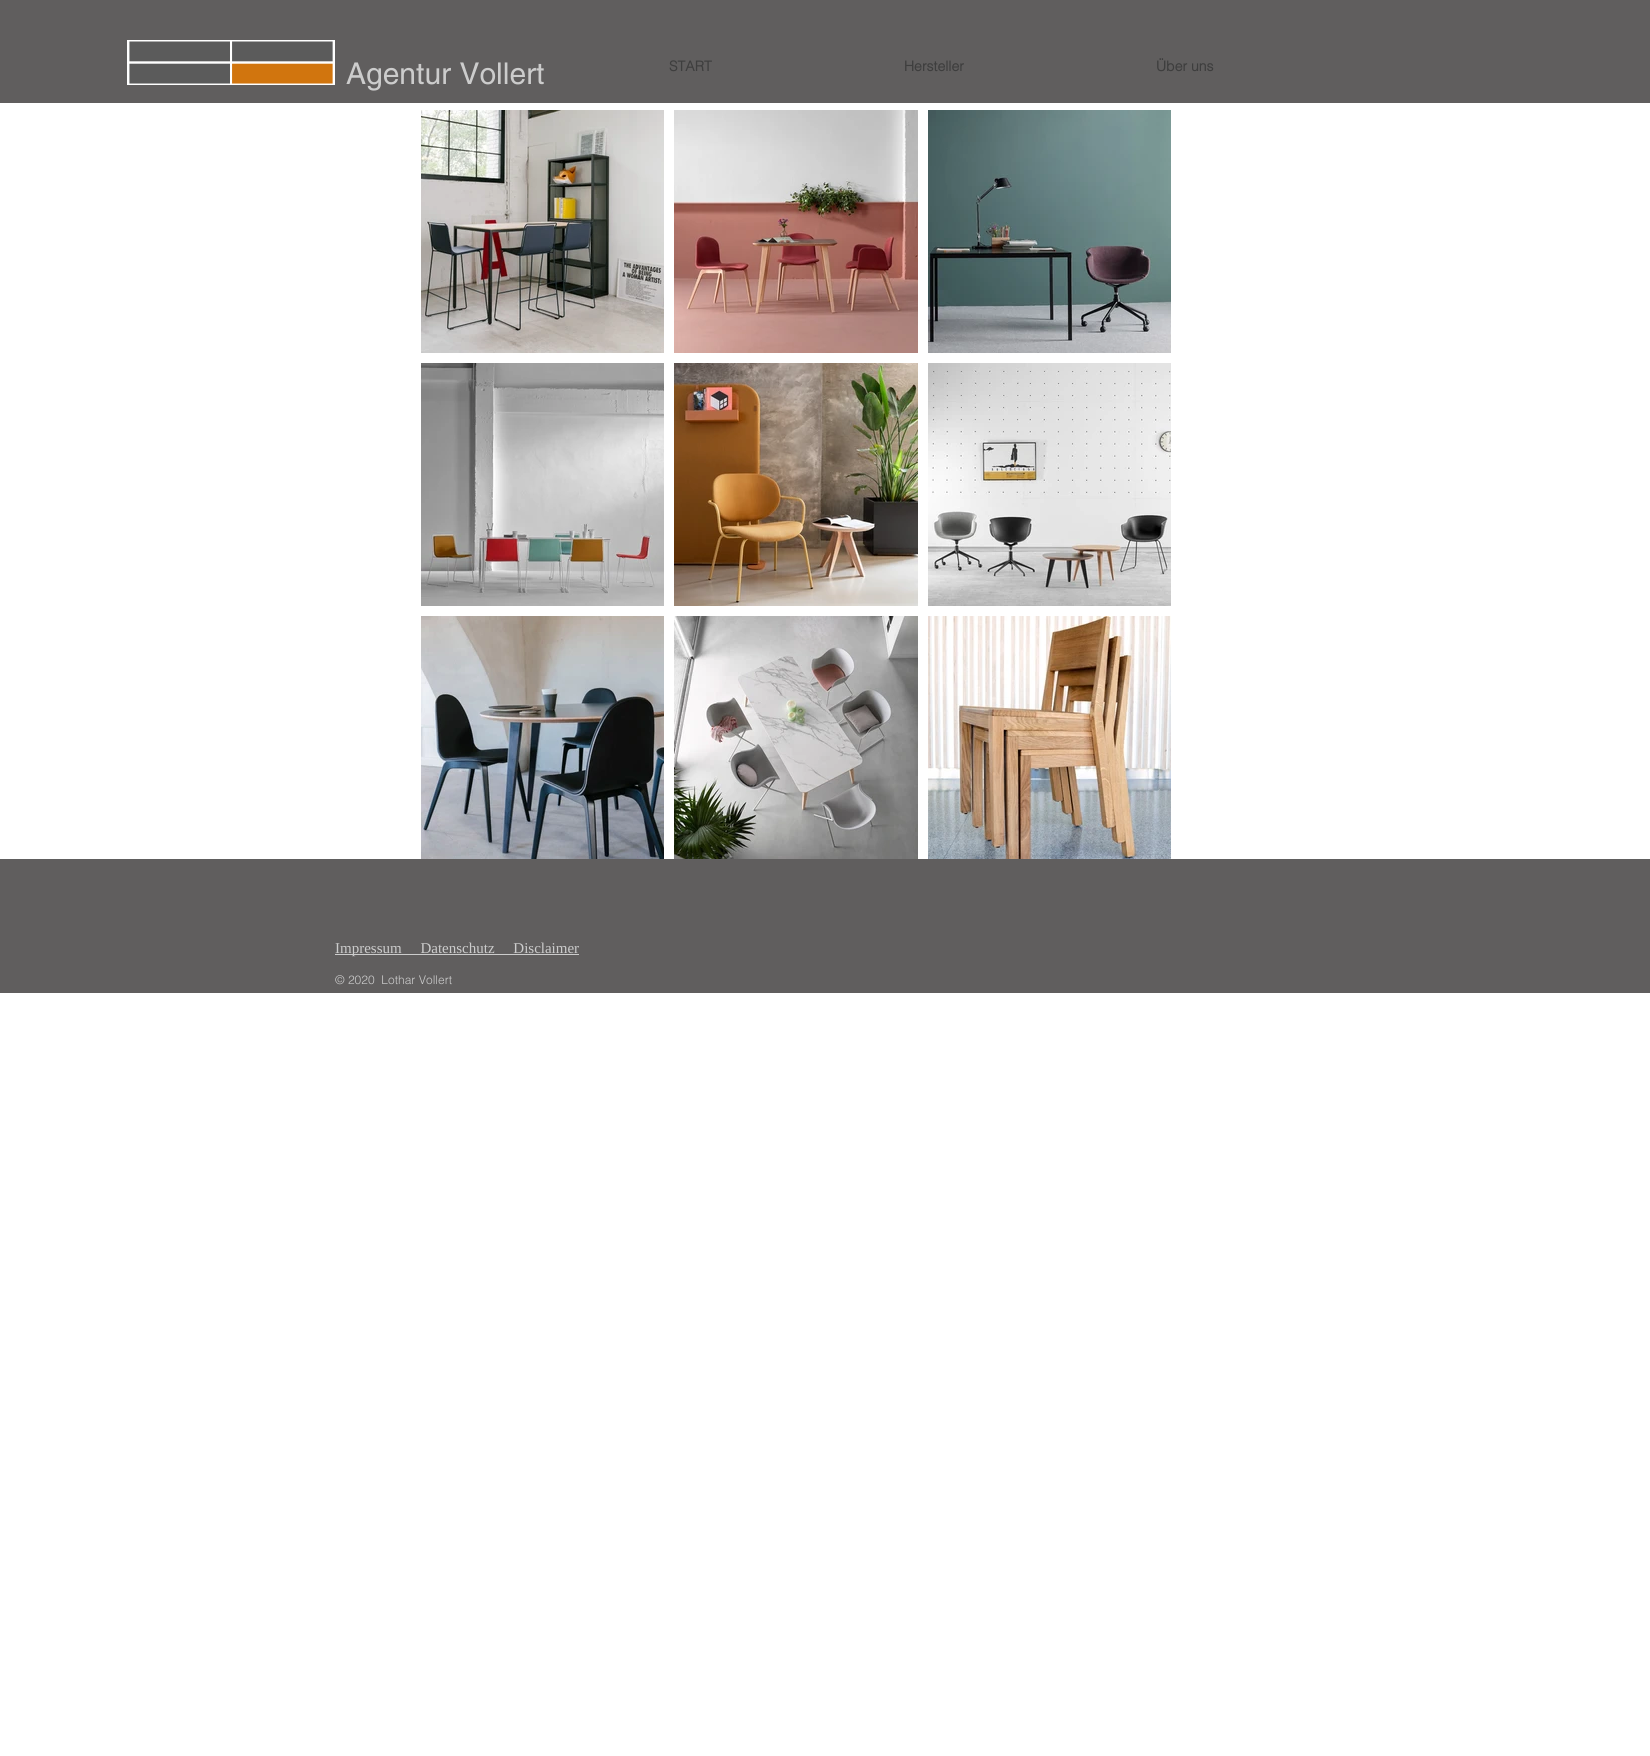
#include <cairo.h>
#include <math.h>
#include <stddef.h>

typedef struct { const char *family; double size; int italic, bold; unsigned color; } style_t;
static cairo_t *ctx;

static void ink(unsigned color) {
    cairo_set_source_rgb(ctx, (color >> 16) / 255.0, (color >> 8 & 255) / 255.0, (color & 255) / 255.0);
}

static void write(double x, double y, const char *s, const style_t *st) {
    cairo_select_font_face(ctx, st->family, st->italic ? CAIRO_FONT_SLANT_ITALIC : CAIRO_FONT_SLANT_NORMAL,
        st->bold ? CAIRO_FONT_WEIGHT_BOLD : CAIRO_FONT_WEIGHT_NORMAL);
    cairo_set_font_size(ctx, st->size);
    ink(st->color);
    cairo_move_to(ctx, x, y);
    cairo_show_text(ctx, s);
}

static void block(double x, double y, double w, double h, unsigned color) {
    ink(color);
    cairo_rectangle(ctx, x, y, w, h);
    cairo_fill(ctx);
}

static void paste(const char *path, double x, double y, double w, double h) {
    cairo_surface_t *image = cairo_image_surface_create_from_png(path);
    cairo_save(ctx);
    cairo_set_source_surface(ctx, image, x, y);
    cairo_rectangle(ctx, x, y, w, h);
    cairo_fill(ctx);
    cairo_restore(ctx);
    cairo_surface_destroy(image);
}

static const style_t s1 = {"helvetica", 30, 0, 0, 0xcccccc};
static const style_t s2 = {"helvetica", 14, 0, 1, 0x3e3e3e};
static const style_t s3 = {"Liberation Serif", 15, 0, 0, 0xcccccc};
static const style_t s4 = {"helvetica Light", 12, 0, 0, 0xcccccc};

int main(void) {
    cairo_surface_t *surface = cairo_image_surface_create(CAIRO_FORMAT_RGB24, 1650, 1756);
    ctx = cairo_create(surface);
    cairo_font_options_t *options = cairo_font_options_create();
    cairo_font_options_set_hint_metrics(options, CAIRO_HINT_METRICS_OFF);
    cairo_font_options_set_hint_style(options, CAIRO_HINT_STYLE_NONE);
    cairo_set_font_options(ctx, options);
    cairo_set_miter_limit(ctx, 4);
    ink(0xffffff);
    cairo_paint(ctx);
    block(0, 0, 1650, 103, 0x605e5e);
    paste("pic1.png", 127, 40, 208, 45);
    write(346, 84, "Agentur Vollert", &s1);
    write(669, 71, "START", &s2);
    write(904, 71, "Hersteller", &s2);
    write(1156, 71, "Über uns", &s2);
    paste("pic2.png", 421, 110, 243, 243);
    paste("pic3.png", 674, 110, 244, 243);
    paste("pic4.png", 928, 110, 243, 243);
    paste("pic5.png", 421, 363, 243, 243);
    paste("pic6.png", 674, 363, 244, 243);
    paste("pic7.png", 928, 363, 243, 243);
    paste("pic8.png", 421, 616, 243, 243);
    paste("pic9.png", 674, 616, 244, 243);
    paste("pic10.png", 928, 616, 243, 243);
    block(0, 859, 1650, 134, 0x605e5e);
    block(335, 954, 244, 1, 0xcccccc);
    write(335, 953, "Impressum     Datenschutz     Disclaimer", &s3);
    write(335, 984, "© 2020  Lothar Vollert", &s4);
    cairo_surface_write_to_png(surface, "screenshot.png");
    cairo_font_options_destroy(options);
    cairo_destroy(ctx);
    cairo_surface_destroy(surface);
    return 0;
}
